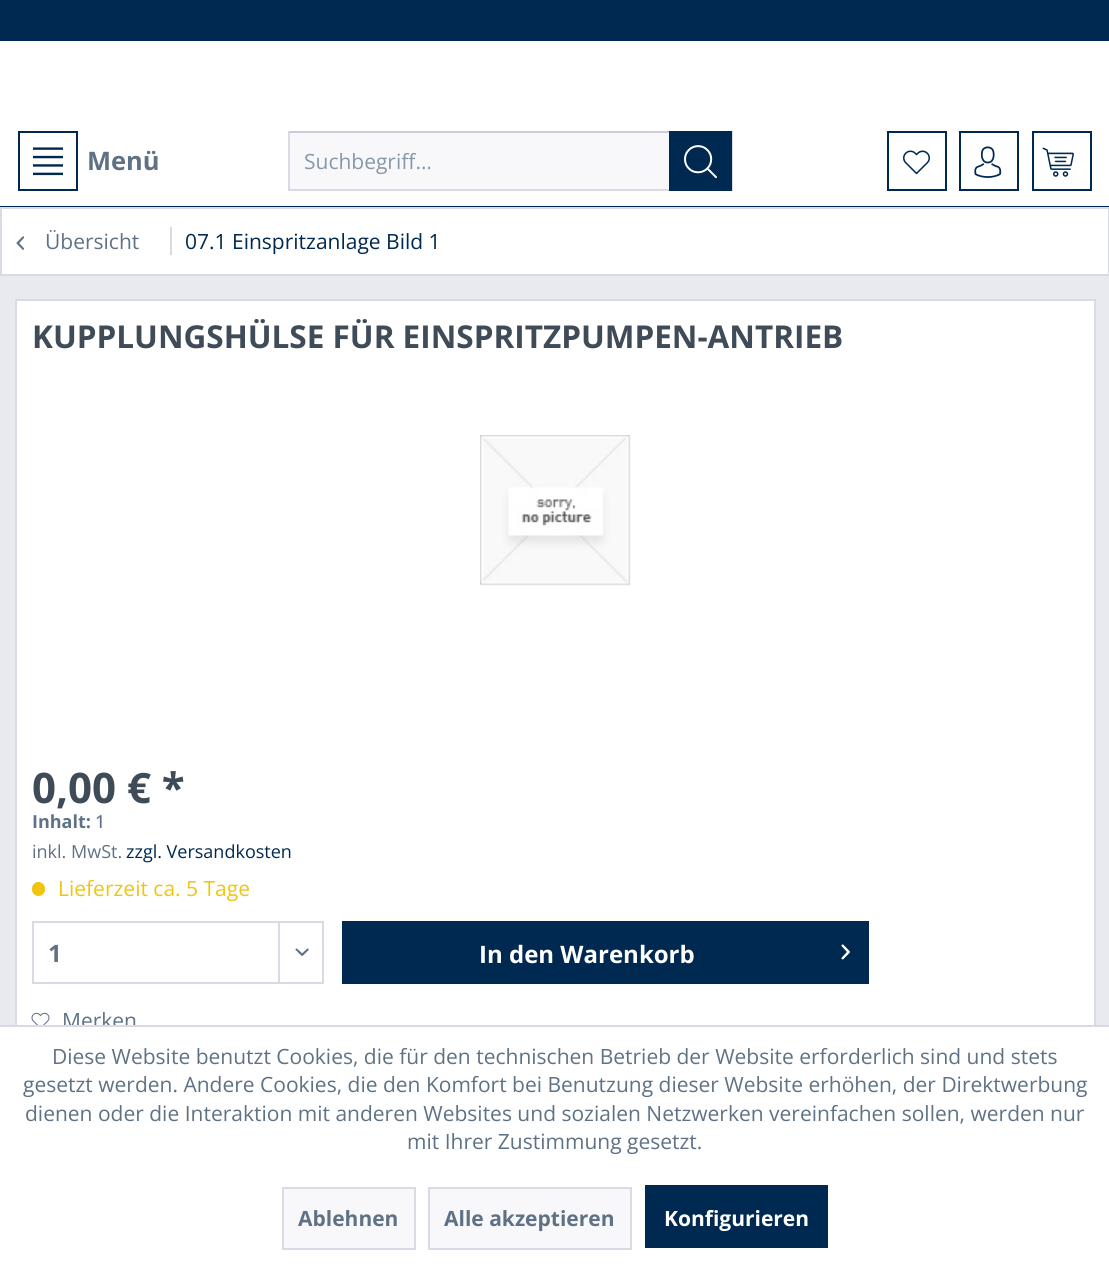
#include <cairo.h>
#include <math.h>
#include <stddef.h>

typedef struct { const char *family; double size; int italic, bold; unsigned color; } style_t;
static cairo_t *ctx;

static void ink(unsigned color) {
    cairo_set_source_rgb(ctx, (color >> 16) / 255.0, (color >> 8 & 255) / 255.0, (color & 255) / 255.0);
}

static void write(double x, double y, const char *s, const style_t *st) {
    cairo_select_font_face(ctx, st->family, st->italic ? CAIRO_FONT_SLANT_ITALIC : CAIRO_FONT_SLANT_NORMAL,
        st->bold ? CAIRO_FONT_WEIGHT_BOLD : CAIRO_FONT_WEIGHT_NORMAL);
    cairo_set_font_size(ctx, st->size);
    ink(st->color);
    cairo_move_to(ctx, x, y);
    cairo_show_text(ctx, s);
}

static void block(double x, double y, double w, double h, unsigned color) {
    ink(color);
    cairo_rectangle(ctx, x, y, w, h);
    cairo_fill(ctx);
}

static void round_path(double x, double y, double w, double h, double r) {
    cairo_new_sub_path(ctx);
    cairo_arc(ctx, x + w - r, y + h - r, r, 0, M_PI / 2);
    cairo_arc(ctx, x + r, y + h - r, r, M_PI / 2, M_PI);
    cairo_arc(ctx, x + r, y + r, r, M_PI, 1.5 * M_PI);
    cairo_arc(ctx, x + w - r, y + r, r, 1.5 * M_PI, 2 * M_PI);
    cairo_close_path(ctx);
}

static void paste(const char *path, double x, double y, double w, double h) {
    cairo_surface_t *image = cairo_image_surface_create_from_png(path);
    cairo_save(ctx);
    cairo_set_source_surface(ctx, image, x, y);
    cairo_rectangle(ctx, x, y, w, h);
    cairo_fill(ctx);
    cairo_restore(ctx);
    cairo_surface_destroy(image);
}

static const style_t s1 = {"Open Sans", 25.5, 0, 1, 0x5f7285};
static const style_t s2 = {"Open Sans", 21, 0, 0, 0x8798a9};
static const style_t s3 = {"Open Sans", 21, 0, 0, 0x5f7285};
static const style_t s4 = {"Open Sans", 21, 0, 0, 0x002952};
static const style_t s5 = {"Open Sans", 31.5, 0, 1, 0x3f4c58};
static const style_t s6 = {"Open Sans", 42, 0, 1, 0x3f4c58};
static const style_t s7 = {"Open Sans", 18, 0, 1, 0x5f7285};
static const style_t s8 = {"Open Sans Medium", 18, 0, 0, 0x5f7285};
static const style_t s9 = {"Open Sans", 18, 0, 0, 0x5f7285};
static const style_t s10 = {"Open Sans", 18, 0, 0, 0x002952};
static const style_t s11 = {"Open Sans", 21, 0, 0, 0xf1c40f};
static const style_t s12 = {"Open Sans", 24, 0, 1, 0x5f7285};
static const style_t s13 = {"Open Sans", 24, 0, 1, 0xffffff};
static const style_t s14 = {"Open Sans", 21, 0, 1, 0x5f7285};
static const style_t s15 = {"Open Sans", 21, 0, 1, 0xffffff};

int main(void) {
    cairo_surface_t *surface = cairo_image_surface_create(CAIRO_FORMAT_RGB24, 1109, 1264);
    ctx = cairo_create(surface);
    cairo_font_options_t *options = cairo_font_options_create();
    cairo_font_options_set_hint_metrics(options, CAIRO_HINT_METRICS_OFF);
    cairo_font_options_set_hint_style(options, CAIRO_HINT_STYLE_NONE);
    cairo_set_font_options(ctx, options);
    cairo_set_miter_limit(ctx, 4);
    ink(0xe9e9f0);
    cairo_paint(ctx);
    block(0, 41, 1109, 165, 0xffffff);
    block(0, 206, 1109, 1, 0x002952);
    block(0, 0, 1109, 41, 0x002952);
    cairo_rectangle(ctx, 19, 132, 58, 58);
    cairo_stroke(ctx);
    paste("pic1.png", 33, 147, 30, 29);
    write(87, 170, "Menü", &s1);
    block(290, 133, 379, 56, 0xf8f8fa);
    block(288, 131, 381, 2, 0xcbcbdb);
    block(732, 131, 1, 60, 0xdadae5);
    block(288, 189, 381, 2, 0xdadae5);
    block(288, 131, 2, 60, 0xdadae5);
    write(304, 169, "Suchbegriff...", &s2);
    block(669, 131, 63, 60, 0x002952);
    paste("pic2.png", 684, 145, 33, 34);
    cairo_rectangle(ctx, 888, 132, 58, 58);
    cairo_stroke(ctx);
    paste("pic3.png", 903, 150, 27, 25);
    cairo_rectangle(ctx, 960, 132, 58, 58);
    cairo_stroke(ctx);
    paste("pic4.png", 974, 146, 28, 32);
    cairo_rectangle(ctx, 1033, 132, 58, 58);
    cairo_stroke(ctx);
    paste("pic5.png", 1042, 147, 32, 30);
    ink(0xffffff);
    cairo_rectangle(ctx, 1, 208, 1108, 67);
    cairo_fill_preserve(ctx);
    ink(0xdadae5);
    cairo_stroke(ctx);
    paste("pic6.png", 16, 236, 9, 14);
    write(45, 249, "Übersicht", &s3);
    block(170, 227, 2, 28, 0xdadae5);
    write(185, 249, "07.1 Einspritzanlage Bild 1", &s4);
    block(17, 301, 1077, 724, 0xffffff);
    block(15, 299, 1080, 2, 0xdadae5);
    block(1094, 299, 2, 726, 0xdadae5);
    block(15, 299, 2, 726, 0xdadae5);
    write(32, 348, "KUPPLUNGSHÜLSE FÜR EINSPRITZPUMPEN-ANTRIEB", &s5);
    paste("pic7.png", 480, 435, 151, 151);
    write(32, 803, "0,00 € *", &s6);
    write(32, 828, "Inhalt:", &s7);
    write(95, 828, "1", &s8);
    write(32, 858, "inkl. MwSt.", &s9);
    write(126, 858, "zzgl. Versandkosten", &s10);
    ink(0xf1c40f);
    round_path(32, 882, 13, 14, 6.5);
    cairo_fill(ctx);
    write(58, 896, "Lieferzeit ca. 5 Tage", &s11);
    cairo_rectangle(ctx, 33, 922, 290, 61);
    ink(0xdadae5);
    cairo_stroke(ctx);
    write(48, 962, "1", &s12);
    block(278, 923, 2, 60, 0xdadae5);
    paste("pic8.png", 295, 948, 14, 8);
    block(342, 921, 527, 63, 0x002952);
    write(479, 963, "In den Warenkorb", &s13);
    paste("pic9.png", 841, 944, 9, 16);
    paste("pic10.png", 31, 1012, 19, 13);
    write(62, 1028, "Merken", &s3);
    block(0, 1027, 1109, 237, 0xffffff);
    block(0, 1025, 1109, 2, 0xdadae5);
    write(52, 1064, "Diese Website benutzt Cookies, die für den technischen Betrieb der Website erforderlich sind und stets", &s3);
    write(23, 1092, "gesetzt werden. Andere Cookies, die den Komfort bei Benutzung dieser Website erhöhen, der Direktwerbung", &s3);
    write(25, 1121, "dienen oder die Interaktion mit anderen Websites und sozialen Netzwerken vereinfachen sollen, werden nur", &s3);
    write(407, 1149, "mit Ihrer Zustimmung gesetzt.", &s3);
    ink(0xf8f8fa);
    cairo_rectangle(ctx, 283, 1188, 132, 61);
    cairo_fill_preserve(ctx);
    ink(0xdadae5);
    cairo_stroke(ctx);
    write(298, 1226, "Ablehnen", &s14);
    ink(0xf8f8fa);
    cairo_rectangle(ctx, 429, 1188, 202, 61);
    cairo_fill_preserve(ctx);
    ink(0xdadae5);
    cairo_stroke(ctx);
    write(444, 1226, "Alle akzeptieren", &s14);
    block(645, 1185, 183, 63, 0x002952);
    write(664, 1226, "Konfigurieren", &s15);
    cairo_surface_write_to_png(surface, "screenshot.png");
    cairo_font_options_destroy(options);
    cairo_destroy(ctx);
    cairo_surface_destroy(surface);
    return 0;
}
